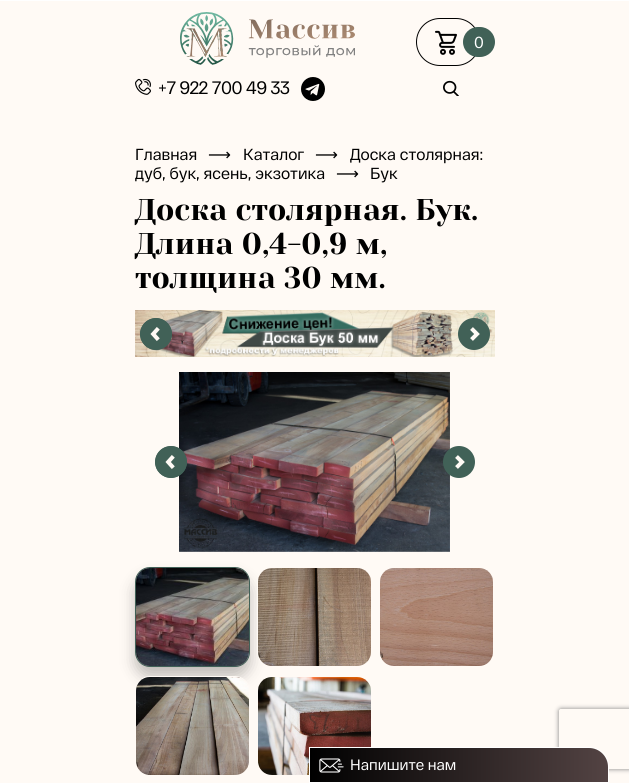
#include <cairo.h>
#include <math.h>
#include <stddef.h>

typedef struct { const char *family; double size; int italic, bold; unsigned color; } style_t;
static cairo_t *ctx;

static void ink(unsigned color) {
    cairo_set_source_rgb(ctx, (color >> 16) / 255.0, (color >> 8 & 255) / 255.0, (color & 255) / 255.0);
}

static void write(double x, double y, const char *s, const style_t *st) {
    cairo_select_font_face(ctx, st->family, st->italic ? CAIRO_FONT_SLANT_ITALIC : CAIRO_FONT_SLANT_NORMAL,
        st->bold ? CAIRO_FONT_WEIGHT_BOLD : CAIRO_FONT_WEIGHT_NORMAL);
    cairo_set_font_size(ctx, st->size);
    ink(st->color);
    cairo_move_to(ctx, x, y);
    cairo_show_text(ctx, s);
}

static void write_spaced(double x, double y, const char *s, double letter, double word) {
    cairo_move_to(ctx, x, y);
    while (*s) {
        char ch[5] = {0};
        int n = 0;
        do ch[n++] = *s++; while ((*s & 0xC0) == 0x80);
        cairo_show_text(ctx, ch);
        cairo_rel_move_to(ctx, letter + word * (*ch == ' '), 0);
    }
}

static void block(double x, double y, double w, double h, unsigned color) {
    ink(color);
    cairo_rectangle(ctx, x, y, w, h);
    cairo_fill(ctx);
}

static void round_path(double x, double y, double w, double h, double r) {
    cairo_new_sub_path(ctx);
    cairo_arc(ctx, x + w - r, y + h - r, r, 0, M_PI / 2);
    cairo_arc(ctx, x + r, y + h - r, r, M_PI / 2, M_PI);
    cairo_arc(ctx, x + r, y + r, r, M_PI, 1.5 * M_PI);
    cairo_arc(ctx, x + w - r, y + r, r, 1.5 * M_PI, 2 * M_PI);
    cairo_close_path(ctx);
}

static void blur_box(double x, double y, double w, double h, double r, double blur, double alpha) {
    cairo_push_group_with_content(ctx, CAIRO_CONTENT_ALPHA);
    cairo_set_operator(ctx, CAIRO_OPERATOR_SOURCE);
    for (int i = 15; i >= -15 && fmin(w, h) + blur * i / 3 > 0; i -= 2) {
        double e = blur * i / 6;
        cairo_set_source_rgba(ctx, 0, 0, 0, alpha * erfc((i - 1) / 8.5) / 2);
        round_path(x - e, y - e, w + 2 * e, h + 2 * e, fmax(0, fmin(r + e + blur * .6, fmin(w, h) / 2 + e)));
        cairo_fill(ctx);
    }
    cairo_pattern_t *soft = cairo_pop_group(ctx);
    cairo_mask(ctx, soft);
    cairo_pattern_destroy(soft);
}

static void paste(const char *path, double x, double y, double w, double h) {
    cairo_surface_t *image = cairo_image_surface_create_from_png(path);
    cairo_save(ctx);
    cairo_set_source_surface(ctx, image, x, y);
    cairo_rectangle(ctx, x, y, w, h);
    cairo_fill(ctx);
    cairo_restore(ctx);
    cairo_surface_destroy(image);
}

static const style_t s1 = {"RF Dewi", 16, 0, 0, 0xffffff};
static const style_t s2 = {"RF Dewi", 16, 0, 0, 0x000000};
static const style_t s3 = {"DejaVu Sans", 16, 0, 0, 0x000000};
static const style_t s4 = {"Yeseva One", 30, 0, 0, 0x000000};
static const style_t s5 = {"RF Dewi", 15, 0, 0, 0xffffff};

int main(void) {
    cairo_surface_t *surface = cairo_image_surface_create(CAIRO_FORMAT_RGB24, 629, 783);
    ctx = cairo_create(surface);
    cairo_font_options_t *options = cairo_font_options_create();
    cairo_font_options_set_hint_metrics(options, CAIRO_HINT_METRICS_OFF);
    cairo_font_options_set_hint_style(options, CAIRO_HINT_STYLE_NONE);
    cairo_set_font_options(ctx, options);
    cairo_set_miter_limit(ctx, 4);
    cairo_pattern_t *gradient;
    ink(0xfffaf5);
    cairo_paint(ctx);
    block(0, 0, 629, 1, 0xffffff);
    paste("pic1.png", 180, 12, 175, 53);
    paste("pic2.png", 435, 30, 22, 25);
    round_path(416.5, 18.5, 63, 47, 23.5);
    ink(0x000000);
    cairo_set_line_width(ctx, 1);
    cairo_stroke(ctx);
    ink(0x416157);
    round_path(463, 27, 32, 30, 15);
    cairo_fill(ctx);
    write(474, 48, "0", &s1);
    paste("pic3.png", 135, 78, 16, 17);
    cairo_set_font_size(ctx, 18);
    ink(0x000000);
    write_spaced(158, 94, "+7 922 700 49 33", -0.4, 0);
    paste("pic4.png", 301, 77, 24, 24);
    paste("pic5.png", 443, 80, 16, 16);
    write(135, 160, "Главная", &s2);
    write(208, 160, "⟶", &s3);
    write(243, 160, "Каталог", &s2);
    write(315, 160, "⟶", &s3);
    write(350, 160, "Доска столярная:", &s2);
    write(135, 179, "дуб, бук, ясень, экзотика", &s2);
    write(336, 179, "⟶", &s3);
    write(370, 179, "Бук", &s2);
    write(135, 220, "Доска столярная. Бук.", &s4);
    write(135, 254, "Длина 0,4-0,9 м,", &s4);
    write(135, 288, "толщина 30 мм.", &s4);
    paste("pic6.png", 135, 310, 360, 47);
    ink(0x416157);
    cairo_arc(ctx, 156, 334, 16, 0, 2 * M_PI);
    cairo_fill(ctx);
    paste("pic7.png", 140, 318, 32, 32);
    cairo_arc(ctx, 474, 334, 16, 0, 2 * M_PI);
    cairo_fill(ctx);
    cairo_new_path(ctx);
    cairo_move_to(ctx, 471.5, 328.5);
    cairo_line_to(ctx, 477, 334);
    cairo_line_to(ctx, 471.5, 339.5);
    ink(0xfffaf5);
    cairo_set_line_width(ctx, 4);
    cairo_stroke(ctx);
    paste("pic8.png", 179, 372, 271, 180);
    ink(0x416157);
    cairo_arc(ctx, 171, 462, 16, 0, 2 * M_PI);
    cairo_fill(ctx);
    paste("pic9.png", 155, 446, 32, 32);
    cairo_arc(ctx, 459, 462, 16, 0, 2 * M_PI);
    cairo_fill(ctx);
    cairo_new_path(ctx);
    cairo_move_to(ctx, 456.5, 456.5);
    cairo_line_to(ctx, 462, 462);
    cairo_line_to(ctx, 456.5, 467.5);
    ink(0xfffaf5);
    cairo_stroke(ctx);
    ink(0x000000);
    blur_box(135, 577, 115, 100, 15, 7.5, 0.25);
    round_path(135.5, 567.5, 114, 99, 14.5);
    ink(0x416157);
    cairo_set_line_width(ctx, 1);
    cairo_stroke(ctx);
    paste("pic10.png", 136, 568, 113, 98);
    round_path(257.5, 567.5, 114, 99, 14.5);
    ink(0xfffaf5);
    cairo_stroke(ctx);
    paste("pic11.png", 258, 568, 113, 98);
    paste("pic12.png", 380, 568, 113, 98);
    round_path(135.5, 676.5, 114, 99, 14.5);
    cairo_stroke(ctx);
    paste("pic13.png", 136, 677, 113, 98);
    paste("pic14.png", 258, 677, 113, 98);
    cairo_save(ctx);
    cairo_set_fill_rule(ctx, CAIRO_FILL_RULE_EVEN_ODD);
    cairo_new_path(ctx);
    cairo_move_to(ctx, 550, 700);
    cairo_line_to(ctx, 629, 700);
    cairo_line_to(ctx, 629, 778);
    cairo_line_to(ctx, 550, 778);
    cairo_close_path(ctx);
    cairo_move_to(ctx, 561, 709);
    cairo_line_to(ctx, 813, 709);
    cairo_curve_to(ctx, 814, 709, 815, 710, 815, 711);
    cairo_line_to(ctx, 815, 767);
    cairo_curve_to(ctx, 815, 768, 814, 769, 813, 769);
    cairo_line_to(ctx, 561, 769);
    cairo_curve_to(ctx, 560, 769, 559, 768, 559, 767);
    cairo_line_to(ctx, 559, 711);
    cairo_curve_to(ctx, 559, 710, 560, 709, 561, 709);
    cairo_close_path(ctx);
    cairo_clip(ctx);
    ink(0x808080);
    blur_box(559, 709, 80, 60, 2, 2.5, 1);
    cairo_restore(ctx);
    cairo_new_path(ctx);
    cairo_move_to(ctx, 309.5, 747.5);
    cairo_line_to(ctx, 589, 747.5);
    cairo_curve_to(ctx, 600, 747.5, 608.5, 756, 608.5, 767);
    cairo_line_to(ctx, 608.5, 782.5);
    cairo_line_to(ctx, 309.5, 782.5);
    cairo_close_path(ctx);
    ink(0xffffff);
    cairo_stroke(ctx);
    gradient = cairo_pattern_create_linear(310, 766, 608, 766);
    cairo_pattern_add_color_stop_rgba(gradient, 0, 0, 0, 0, 1);
    cairo_pattern_add_color_stop_rgba(gradient, 1, 0.325, 0.263, 0.263, 1);
    cairo_set_source(ctx, gradient);
    cairo_pattern_destroy(gradient);
    cairo_new_path(ctx);
    cairo_move_to(ctx, 310, 748);
    cairo_line_to(ctx, 589, 748);
    cairo_curve_to(ctx, 599.5, 748, 608, 756.5, 608, 767);
    cairo_line_to(ctx, 608, 782);
    cairo_line_to(ctx, 310, 782);
    cairo_close_path(ctx);
    cairo_fill(ctx);
    paste("pic15.png", 319, 758, 25, 15);
    write(350, 770, "Напишите нам", &s5);
    cairo_surface_write_to_png(surface, "screenshot.png");
    cairo_font_options_destroy(options);
    cairo_destroy(ctx);
    cairo_surface_destroy(surface);
    return 0;
}
